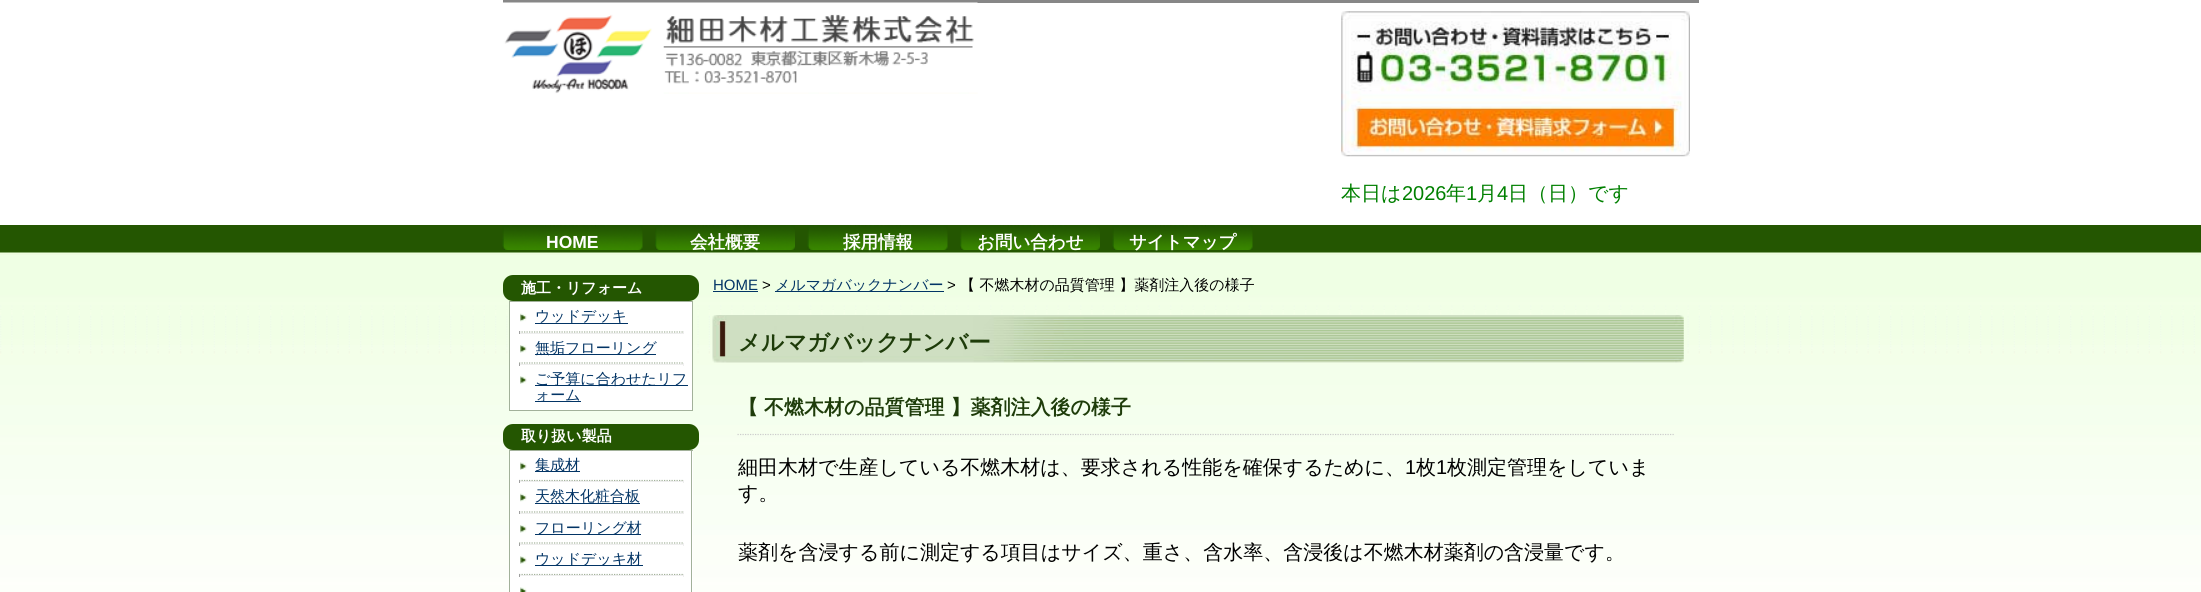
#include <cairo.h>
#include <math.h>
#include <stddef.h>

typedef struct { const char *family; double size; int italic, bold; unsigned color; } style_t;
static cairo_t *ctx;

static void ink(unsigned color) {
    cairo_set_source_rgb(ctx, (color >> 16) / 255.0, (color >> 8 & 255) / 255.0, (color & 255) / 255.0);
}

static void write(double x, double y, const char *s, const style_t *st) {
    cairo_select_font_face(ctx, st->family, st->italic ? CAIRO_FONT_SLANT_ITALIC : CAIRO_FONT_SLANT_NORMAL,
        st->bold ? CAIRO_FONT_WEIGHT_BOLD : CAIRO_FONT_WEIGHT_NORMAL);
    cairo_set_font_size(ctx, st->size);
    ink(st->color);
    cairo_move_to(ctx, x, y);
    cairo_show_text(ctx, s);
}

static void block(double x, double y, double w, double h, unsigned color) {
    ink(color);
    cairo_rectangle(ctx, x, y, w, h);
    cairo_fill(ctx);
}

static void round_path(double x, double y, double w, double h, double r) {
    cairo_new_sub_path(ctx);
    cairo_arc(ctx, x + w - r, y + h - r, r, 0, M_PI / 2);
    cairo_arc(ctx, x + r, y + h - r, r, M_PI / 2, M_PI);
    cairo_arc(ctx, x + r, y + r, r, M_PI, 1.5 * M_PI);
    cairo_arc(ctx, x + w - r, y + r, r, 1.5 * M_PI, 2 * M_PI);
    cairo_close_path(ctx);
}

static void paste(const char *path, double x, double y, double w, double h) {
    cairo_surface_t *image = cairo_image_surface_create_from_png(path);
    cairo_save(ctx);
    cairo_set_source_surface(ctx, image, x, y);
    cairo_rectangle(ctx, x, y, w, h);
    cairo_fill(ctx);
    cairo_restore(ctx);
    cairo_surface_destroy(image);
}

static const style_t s1 = {"WenQuanYi Zen Hei Medium", 20, 0, 0, 0x008000};
static const style_t s2 = {"Liberation Sans", 20, 0, 0, 0x008000};
static const style_t s3 = {"Liberation Sans", 17.5, 0, 1, 0xffffff};
static const style_t s4 = {"WenQuanYi Zen Hei", 17.5, 0, 1, 0xffffff};
static const style_t s5 = {"WenQuanYi Zen Hei", 15, 0, 1, 0xffffff};
static const style_t s6 = {"WenQuanYi Zen Hei Medium", 15, 0, 0, 0x023465};
static const style_t s7 = {"Liberation Sans", 15, 0, 0, 0x023465};
static const style_t s8 = {"Liberation Sans", 15, 0, 0, 0x000000};
static const style_t s9 = {"WenQuanYi Zen Hei Medium", 15, 0, 0, 0x000000};
static const style_t s10 = {"WenQuanYi Zen Hei", 22.5, 0, 1, 0x1e3c0a};
static const style_t s11 = {"WenQuanYi Zen Hei", 20, 0, 1, 0x1e3c0a};
static const style_t s12 = {"WenQuanYi Zen Hei Medium", 20, 0, 0, 0x000000};
static const style_t s13 = {"Liberation Sans", 20, 0, 0, 0x000000};

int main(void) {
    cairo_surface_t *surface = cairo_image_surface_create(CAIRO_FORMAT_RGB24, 2201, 592);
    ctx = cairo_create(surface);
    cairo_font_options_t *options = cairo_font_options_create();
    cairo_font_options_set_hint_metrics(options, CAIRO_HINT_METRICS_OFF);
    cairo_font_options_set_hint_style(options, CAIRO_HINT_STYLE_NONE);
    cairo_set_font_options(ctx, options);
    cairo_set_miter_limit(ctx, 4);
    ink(0xffffff);
    cairo_paint(ctx);
    block(503, 0, 1196, 3, 0x878787);
    paste("pic1.png", 503, 2, 475, 92);
    paste("pic2.png", 1341, 11, 349, 146);
    write(1341, 200, "本日は", &s1);
    write(1402, 200, "2026", &s2);
    write(1446, 200, "年", &s1);
    write(1466, 200, "1", &s2);
    write(1477, 200, "月", &s1);
    write(1497, 200, "4", &s2);
    write(1508, 200, "日（日）です", &s1);
    block(0, 225, 2201, 28, 0x245601);
    paste("pic3.png", 502, 225, 141, 25);
    write(546, 248, "HOME", &s3);
    paste("pic4.png", 655, 225, 140, 25);
    write(690, 248, "会社概要", &s4);
    paste("pic5.png", 807, 225, 141, 25);
    write(843, 248, "採用情報", &s4);
    paste("pic6.png", 960, 225, 140, 25);
    write(977, 248, "お問い合わせ", &s4);
    paste("pic7.png", 1112, 225, 141, 25);
    write(1129, 248, "サイトマップ", &s4);
    paste("pic8.png", 0, 252, 2201, 340);
    ink(0x245601);
    round_path(503, 275, 196, 26, 10);
    cairo_fill(ctx);
    write(521, 293, "施工・リフォーム", &s5);
    cairo_rectangle(ctx, 509.5, 301.5, 183, 109);
    cairo_fill_preserve(ctx);
    ink(0xa2b19a);
    cairo_set_line_width(ctx, 1);
    cairo_stroke(ctx);
    paste("pic9.png", 520, 313, 7, 9);
    write(535, 321, "ウッドデッキ", &s6);
    block(535, 323, 93, 1, 0x023465);
    cairo_new_path(ctx);
    cairo_move_to(ctx, 519, 332);
    cairo_line_to(ctx, 684, 332);
    ink(0xa2b19a);
    cairo_set_line_width(ctx, 1.2);
    cairo_set_dash(ctx, (double[]){1.25, 1.25}, 2, 0);
    cairo_stroke(ctx);
    block(683, 331, 1, 3, 0xeeeeee);
    block(519, 333, 165, 1, 0xeeeeee);
    block(519, 331, 1, 3, 0x9f9f9f);
    paste("pic10.png", 520, 345, 7, 8);
    block(535, 354, 121, 1, 0x023465);
    write(535, 353, "無垢フローリング", &s6);
    cairo_new_path(ctx);
    cairo_move_to(ctx, 519, 363);
    cairo_line_to(ctx, 684, 363);
    ink(0xa2b19a);
    cairo_stroke(ctx);
    block(683, 363, 1, 3, 0xeeeeee);
    block(519, 364, 165, 1, 0xeeeeee);
    block(519, 363, 1, 3, 0x9f9f9f);
    paste("pic11.png", 520, 376, 7, 8);
    block(535, 385, 153, 1, 0x023465);
    write(535, 384, "ご予算に合わせたリフ", &s6);
    block(535, 401, 46, 1, 0x023465);
    write(535, 400, "ォーム", &s6);
    ink(0x245601);
    round_path(503, 424, 196, 26, 10);
    cairo_fill(ctx);
    write(521, 441, "取り扱い製品", &s5);
    block(510, 451, 183, 141, 0xffffff);
    block(509, 450, 184, 1, 0xa2b19a);
    block(691, 450, 1, 142, 0xa2b19a);
    block(509, 450, 1, 142, 0xa2b19a);
    paste("pic12.png", 520, 462, 7, 8);
    block(535, 471, 45, 1, 0x023465);
    write(535, 470, "集成材", &s6);
    cairo_new_path(ctx);
    cairo_move_to(ctx, 519, 480.5);
    cairo_line_to(ctx, 684, 480.5);
    ink(0xa2b19a);
    cairo_stroke(ctx);
    block(683, 480, 1, 3, 0xeeeeee);
    block(519, 481, 165, 1, 0xeeeeee);
    block(519, 480, 1, 3, 0x9f9f9f);
    paste("pic9.png", 520, 493, 7, 9);
    block(535, 503, 105, 1, 0x023465);
    write(535, 501, "天然木化粧合板", &s6);
    cairo_new_path(ctx);
    cairo_move_to(ctx, 519, 512);
    cairo_line_to(ctx, 684, 512);
    ink(0xa2b19a);
    cairo_stroke(ctx);
    block(683, 511, 1, 3, 0xeeeeee);
    block(519, 513, 165, 1, 0xeeeeee);
    block(519, 511, 1, 3, 0x9f9f9f);
    paste("pic10.png", 520, 525, 7, 8);
    block(535, 534, 106, 1, 0x023465);
    write(535, 533, "フローリング材", &s6);
    cairo_new_path(ctx);
    cairo_move_to(ctx, 519, 543);
    cairo_line_to(ctx, 684, 543);
    ink(0xa2b19a);
    cairo_stroke(ctx);
    block(683, 543, 1, 3, 0xeeeeee);
    block(519, 544, 165, 1, 0xeeeeee);
    block(519, 543, 1, 3, 0x9f9f9f);
    paste("pic11.png", 520, 556, 7, 8);
    block(535, 565, 108, 1, 0x023465);
    write(535, 564, "ウッドデッキ材", &s6);
    cairo_new_path(ctx);
    cairo_move_to(ctx, 519, 574.5);
    cairo_line_to(ctx, 684, 574.5);
    ink(0xa2b19a);
    cairo_stroke(ctx);
    block(683, 574, 1, 3, 0xeeeeee);
    block(519, 575, 165, 1, 0xeeeeee);
    block(519, 574, 1, 3, 0x9f9f9f);
    paste("pic13.png", 520, 587, 7, 5);
    write(713, 290, "HOME", &s7);
    block(713, 291, 45, 1, 0x023465);
    write(762, 290, ">", &s8);
    block(775, 291, 169, 1, 0x023465);
    write(775, 290, "メルマガバックナンバー", &s6);
    write(947, 290, ">", &s8);
    write(960, 290, "【 不燃木材の品質管理 】薬剤注入後の様子", &s9);
    paste("pic14.png", 712, 315, 972, 48);
    write(738, 350, "メルマガバックナンバー", &s10);
    cairo_new_path(ctx);
    cairo_move_to(ctx, 737.5, 434.5);
    cairo_line_to(ctx, 1674, 434.5);
    ink(0xcccccc);
    cairo_stroke(ctx);
    write(738, 414, "【 不燃木材の品質管理 】薬剤注入後の様子", &s11);
    write(738, 474, "細田木材で生産している不燃木材は、要求される性能を確保するために、", &s12);
    write(1405, 474, "1", &s13);
    write(1416, 474, "枚", &s12);
    write(1436, 474, "1", &s13);
    write(1447, 474, "枚測定管理をしていま", &s12);
    write(738, 500, "す。", &s12);
    write(738, 559, "薬剤を含浸する前に測定する項目はサイズ、重さ、含水率、含浸後は不燃木材薬剤の含浸量です。", &s12);
    cairo_surface_write_to_png(surface, "screenshot.png");
    cairo_font_options_destroy(options);
    cairo_destroy(ctx);
    cairo_surface_destroy(surface);
    return 0;
}
